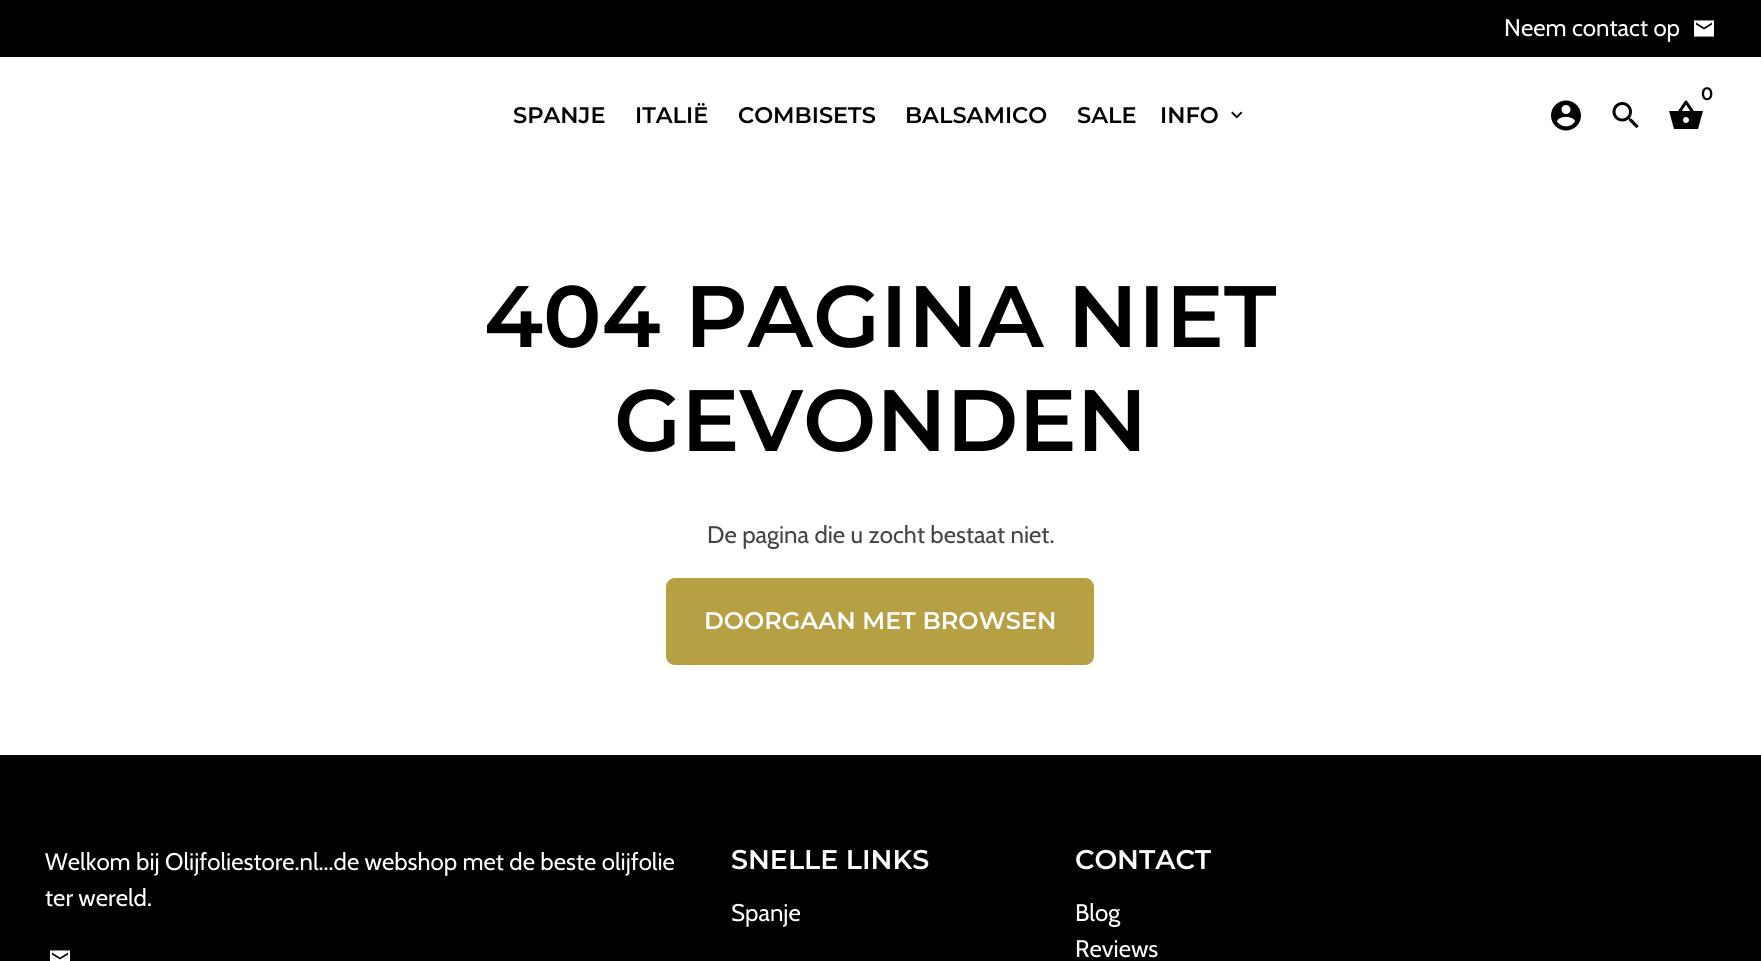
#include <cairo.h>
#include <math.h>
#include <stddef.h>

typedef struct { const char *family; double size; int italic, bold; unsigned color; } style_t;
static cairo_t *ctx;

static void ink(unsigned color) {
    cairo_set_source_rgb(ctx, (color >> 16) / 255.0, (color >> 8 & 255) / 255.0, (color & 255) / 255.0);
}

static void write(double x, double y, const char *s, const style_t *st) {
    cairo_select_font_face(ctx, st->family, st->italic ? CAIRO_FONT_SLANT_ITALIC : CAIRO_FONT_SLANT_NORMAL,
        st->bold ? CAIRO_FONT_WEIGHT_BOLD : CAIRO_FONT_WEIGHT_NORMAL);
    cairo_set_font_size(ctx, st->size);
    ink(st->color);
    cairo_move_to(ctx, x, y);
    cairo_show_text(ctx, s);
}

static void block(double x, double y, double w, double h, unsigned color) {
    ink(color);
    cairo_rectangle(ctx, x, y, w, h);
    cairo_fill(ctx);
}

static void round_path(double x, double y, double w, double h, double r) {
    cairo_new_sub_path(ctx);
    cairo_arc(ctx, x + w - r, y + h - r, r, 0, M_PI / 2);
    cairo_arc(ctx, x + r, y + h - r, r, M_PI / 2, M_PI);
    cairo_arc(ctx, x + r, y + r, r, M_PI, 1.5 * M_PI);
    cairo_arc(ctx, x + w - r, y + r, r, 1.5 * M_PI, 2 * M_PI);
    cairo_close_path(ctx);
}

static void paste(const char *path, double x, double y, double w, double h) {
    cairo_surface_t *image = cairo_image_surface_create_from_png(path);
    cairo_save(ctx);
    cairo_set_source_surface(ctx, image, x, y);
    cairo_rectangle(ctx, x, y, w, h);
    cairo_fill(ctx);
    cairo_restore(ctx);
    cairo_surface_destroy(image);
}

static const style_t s1 = {"Cabin", 24, 0, 0, 0xffffff};
static const style_t s2 = {"Montserrat SemiBold", 18, 0, 0, 0x000000};
static const style_t s3 = {"Montserrat SemiBold", 22.5, 0, 0, 0x000000};
static const style_t s4 = {"Montserrat SemiBold", 87, 0, 0, 0x000000};
static const style_t s5 = {"Cabin", 24, 0, 0, 0x444444};
static const style_t s6 = {"Montserrat SemiBold", 24, 0, 0, 0xffffff};
static const style_t s7 = {"Montserrat SemiBold", 27, 0, 0, 0xffffff};

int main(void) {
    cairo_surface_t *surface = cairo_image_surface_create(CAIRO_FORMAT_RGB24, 1761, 961);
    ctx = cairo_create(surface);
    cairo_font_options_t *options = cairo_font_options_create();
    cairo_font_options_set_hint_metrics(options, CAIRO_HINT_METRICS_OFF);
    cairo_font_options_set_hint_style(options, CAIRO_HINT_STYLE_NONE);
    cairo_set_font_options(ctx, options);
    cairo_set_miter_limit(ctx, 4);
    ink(0xffffff);
    cairo_paint(ctx);
    block(0, 0, 1761, 57, 0x000000);
    write(1504, 36, "Neem contact op", &s1);
    paste("pic1.png", 1694, 20, 20, 17);
    paste("pic2.png", 1669, 100, 34, 29);
    write(1701, 100, "0", &s2);
    paste("pic3.png", 1551, 100, 30, 31);
    paste("pic4.png", 1612, 102, 27, 27);
    write(513, 123, "SPANJE", &s3);
    write(635, 123, "ITALIË", &s3);
    write(738, 123, "COMBISETS", &s3);
    write(905, 123, "BALSAMICO", &s3);
    write(1077, 123, "SALE", &s3);
    write(1160, 123, "INFO", &s3);
    paste("pic5.png", 1231, 111, 12, 8);
    write(484, 347, "404 PAGINA NIET", &s4);
    write(614, 451, "GEVONDEN", &s4);
    write(707, 543, "De pagina die u zocht bestaat niet.", &s5);
    ink(0xb79f44);
    round_path(667, 579, 426, 85, 8);
    cairo_fill_preserve(ctx);
    cairo_stroke(ctx);
    write(704, 629, "DOORGAAN MET BROWSEN", &s6);
    block(0, 755, 1761, 206, 0x000000);
    write(45, 870, "Welkom bij Olijfoliestore.nl...de webshop met de beste olijfolie", &s1);
    write(45, 906, "ter wereld.", &s1);
    paste("pic6.png", 50, 950, 20, 11);
    write(731, 869, "SNELLE LINKS", &s7);
    write(731, 921, "Spanje", &s1);
    write(1075, 869, "CONTACT", &s7);
    write(1075, 921, "Blog", &s1);
    write(1075, 957, "Reviews", &s1);
    cairo_surface_write_to_png(surface, "screenshot.png");
    cairo_font_options_destroy(options);
    cairo_destroy(ctx);
    cairo_surface_destroy(surface);
    return 0;
}
